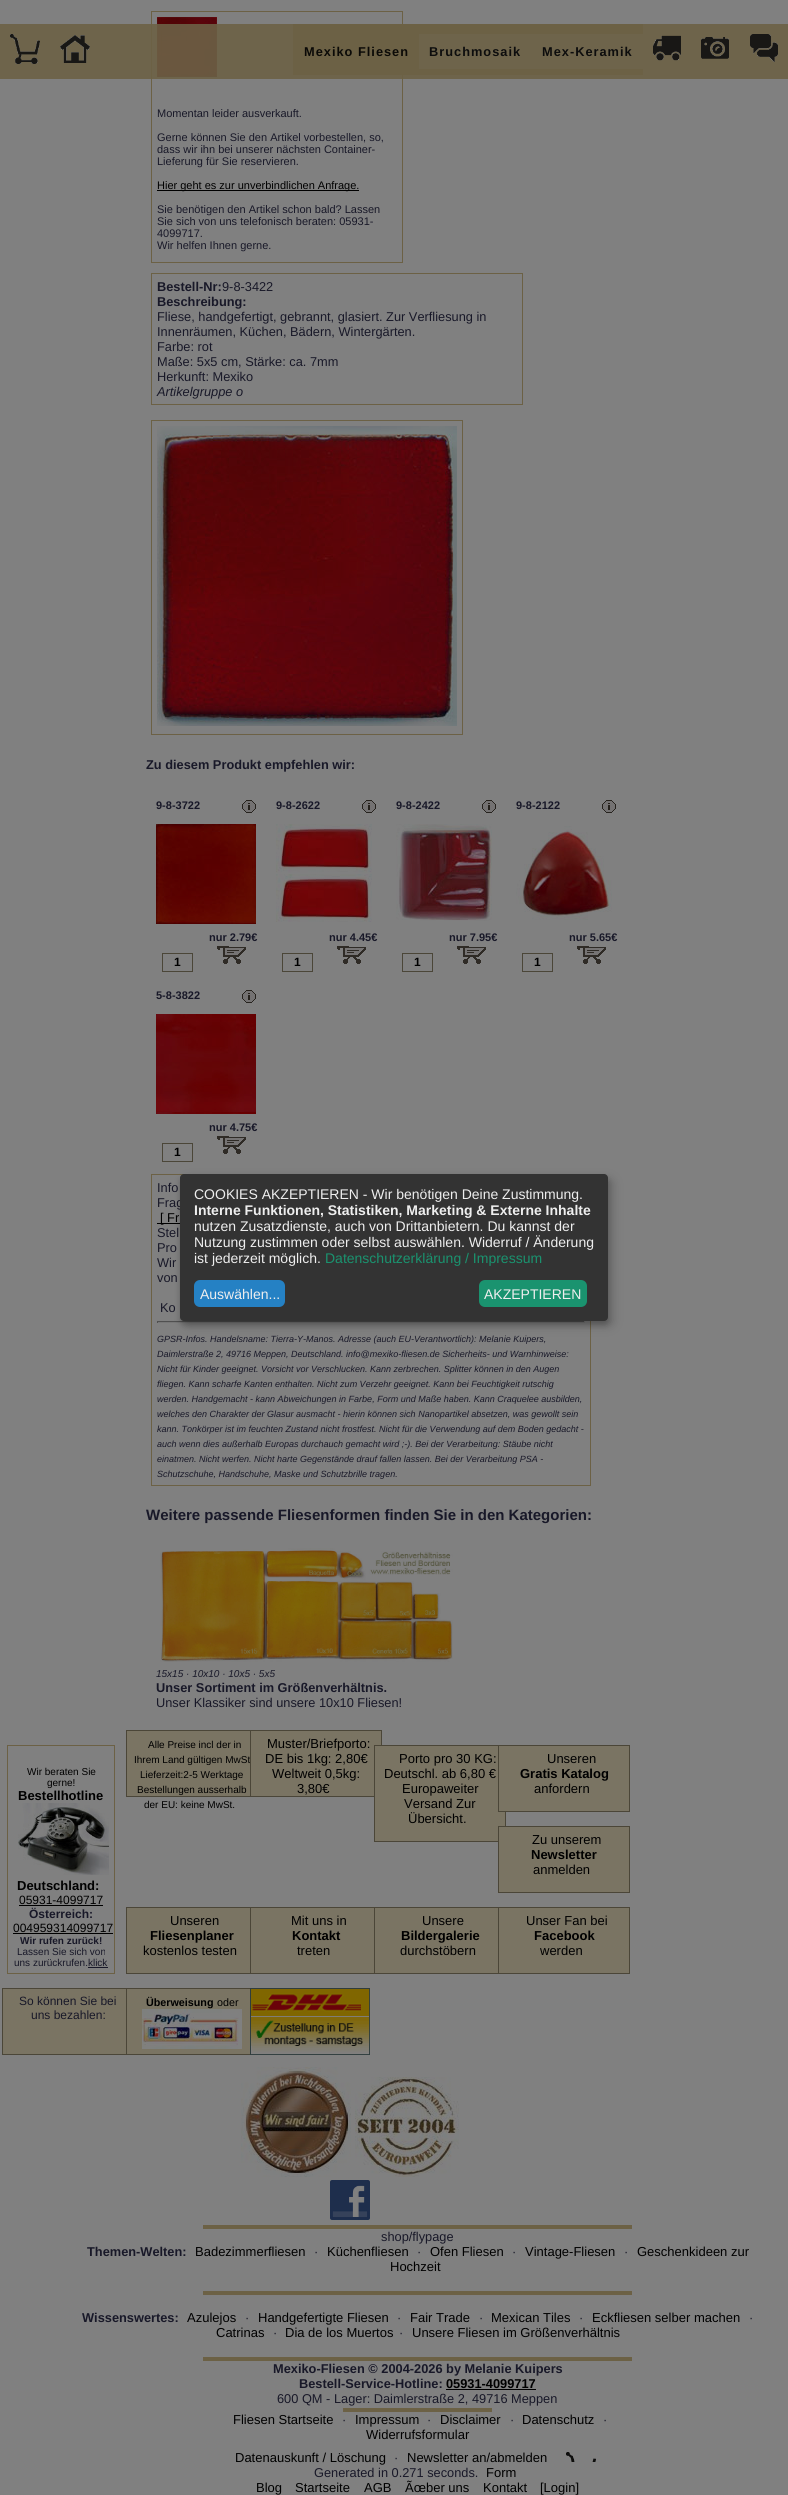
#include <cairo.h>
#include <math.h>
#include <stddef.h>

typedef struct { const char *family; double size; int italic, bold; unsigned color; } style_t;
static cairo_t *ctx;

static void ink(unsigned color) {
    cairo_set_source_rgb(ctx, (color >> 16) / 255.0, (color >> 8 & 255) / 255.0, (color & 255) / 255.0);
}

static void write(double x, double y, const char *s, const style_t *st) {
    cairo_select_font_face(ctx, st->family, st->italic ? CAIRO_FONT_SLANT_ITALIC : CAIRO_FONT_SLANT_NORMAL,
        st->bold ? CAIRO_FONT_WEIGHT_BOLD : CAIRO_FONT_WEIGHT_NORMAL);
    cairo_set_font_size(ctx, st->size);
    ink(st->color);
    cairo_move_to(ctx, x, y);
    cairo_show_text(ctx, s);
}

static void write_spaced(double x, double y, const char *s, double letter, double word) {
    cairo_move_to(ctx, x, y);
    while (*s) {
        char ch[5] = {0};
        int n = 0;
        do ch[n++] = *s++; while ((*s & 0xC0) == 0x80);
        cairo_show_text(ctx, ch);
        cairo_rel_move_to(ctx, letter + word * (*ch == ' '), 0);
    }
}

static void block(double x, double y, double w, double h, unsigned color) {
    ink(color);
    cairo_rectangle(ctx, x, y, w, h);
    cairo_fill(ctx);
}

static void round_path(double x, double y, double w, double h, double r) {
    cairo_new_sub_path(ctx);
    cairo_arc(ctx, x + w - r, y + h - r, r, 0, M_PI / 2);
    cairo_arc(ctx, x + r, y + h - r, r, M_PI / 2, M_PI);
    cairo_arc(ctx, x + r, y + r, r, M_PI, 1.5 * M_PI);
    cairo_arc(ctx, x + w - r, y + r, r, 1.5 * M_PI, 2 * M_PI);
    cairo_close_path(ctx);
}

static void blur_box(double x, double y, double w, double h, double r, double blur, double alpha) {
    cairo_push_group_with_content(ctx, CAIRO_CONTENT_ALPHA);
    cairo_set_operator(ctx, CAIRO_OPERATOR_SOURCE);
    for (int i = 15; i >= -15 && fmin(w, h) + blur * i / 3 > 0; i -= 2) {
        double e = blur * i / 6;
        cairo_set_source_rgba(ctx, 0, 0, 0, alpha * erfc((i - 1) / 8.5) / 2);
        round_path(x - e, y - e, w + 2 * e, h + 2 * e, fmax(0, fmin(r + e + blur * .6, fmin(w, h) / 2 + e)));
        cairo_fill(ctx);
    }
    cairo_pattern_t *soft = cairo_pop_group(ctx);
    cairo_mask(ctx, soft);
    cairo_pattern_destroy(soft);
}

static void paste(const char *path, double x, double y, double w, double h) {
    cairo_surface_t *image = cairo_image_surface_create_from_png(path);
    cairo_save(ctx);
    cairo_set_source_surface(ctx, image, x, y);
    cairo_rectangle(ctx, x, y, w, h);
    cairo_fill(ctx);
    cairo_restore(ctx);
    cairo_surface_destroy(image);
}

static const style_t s1 = {"Liberation Sans", 11, 0, 0, 0x181828};
static const style_t s2 = {"Liberation Sans", 11, 0, 0, 0x000000};
static const style_t s3 = {"Liberation Sans", 12.8, 0, 1, 0x181828};
static const style_t s4 = {"Liberation Sans", 12.8, 0, 0, 0x181828};
static const style_t s5 = {"Liberation Sans", 12.8, 1, 0, 0x181828};
static const style_t s6 = {"Liberation Sans", 11, 0, 1, 0x181828};
static const style_t s7 = {"Liberation Sans", 12, 0, 1, 0x000000};
static const style_t s8 = {"Liberation Sans", 12.8, 0, 0, 0x000000};
static const style_t s9 = {"Liberation Sans", 9, 1, 0, 0x181828};
static const style_t s10 = {"Liberation Sans", 15, 0, 1, 0x181828};
static const style_t s11 = {"Liberation Sans", 10, 1, 0, 0x181828};
static const style_t s12 = {"Liberation Sans", 14, 0, 0, 0xeeeeee};
static const style_t s13 = {"Liberation Sans", 14, 0, 1, 0xeeeeee};
static const style_t s14 = {"Liberation Sans", 14, 0, 0, 0x1a936f};
static const style_t s15 = {"Liberation Sans", 10, 0, 0, 0x000000};
static const style_t s16 = {"Liberation Sans", 13, 0, 1, 0x000000};
static const style_t s17 = {"Liberation Sans", 12, 0, 0, 0x000000};
static const style_t s18 = {"Liberation Sans", 12, 0, 1, 0x181828};
static const style_t s19 = {"Liberation Sans", 10, 0, 1, 0x181828};
static const style_t s20 = {"Liberation Sans", 10, 0, 0, 0x181828};
static const style_t s21 = {"Liberation Sans", 13, 0, 0, 0x000000};
static const style_t s22 = {"Liberation Sans", 12, 0, 0, 0x181828};
static const style_t s23 = {"Liberation Sans", 10.75, 0, 1, 0x000000};
static const style_t s24 = {"Liberation Sans", 10.75, 0, 0, 0x000000};
static const style_t s25 = {"Liberation Sans", 12.8, 0, 1, 0x000000};

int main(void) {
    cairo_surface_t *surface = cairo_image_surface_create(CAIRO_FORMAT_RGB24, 788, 2495);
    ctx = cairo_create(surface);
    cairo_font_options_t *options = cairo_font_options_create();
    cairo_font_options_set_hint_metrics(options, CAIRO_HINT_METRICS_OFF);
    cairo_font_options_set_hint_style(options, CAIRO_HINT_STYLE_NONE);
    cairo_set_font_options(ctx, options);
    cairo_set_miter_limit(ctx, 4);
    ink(0x808080);
    cairo_paint(ctx);
    cairo_rectangle(ctx, 151.5, 11.5, 251, 251);
    ink(0x6c6145);
    cairo_set_line_width(ctx, 1);
    cairo_stroke(ctx);
    paste("pic6.png", 157, 17, 60, 60);
    cairo_set_source_rgba(ctx, 0.424, 0.38, 0.271, 0.9);
    cairo_rectangle(ctx, 0, 24, 788, 55);
    cairo_fill(ctx);
    paste("pic1.png", 10, 34, 30, 30);
    paste("pic2.png", 60, 35, 30, 28);
    cairo_rectangle(ctx, 293, 24, 350, 51);
    cairo_fill(ctx);
    cairo_select_font_face(ctx, "Liberation Sans", CAIRO_FONT_SLANT_NORMAL, CAIRO_FONT_WEIGHT_BOLD);
    cairo_set_font_size(ctx, 12.8);
    ink(0x0b0a07);
    write_spaced(304, 56, "Mexiko Fliesen", 1, 0);
    block(419, 34, 224, 35, 0x6e644b);
    ink(0x0d0d0d);
    write_spaced(429, 56, "Bruchmosaik", 1, 0);
    write_spaced(542, 56, "Mex-Keramik", 1, 0);
    paste("pic3.png", 653, 35, 28, 26);
    paste("pic4.png", 701, 37, 28, 22);
    paste("pic5.png", 750, 34, 28, 28);
    write(157, 117, "Momentan leider ausverkauft.", &s1);
    write(157, 141, "Gerne können Sie den Artikel vorbestellen, so,", &s1);
    write(157, 153, "dass wir ihn bei unserer nächsten Container-", &s1);
    write(157, 165, "Lieferung für Sie reservieren.", &s1);
    block(157, 190, 202, 1, 0x000000);
    write(157, 189, "Hier geht es zur unverbindlichen Anfrage.", &s2);
    write(157, 213, "Sie benötigen den Artikel schon bald? Lassen", &s1);
    write(157, 225, "Sie sich von uns telefonisch beraten: 05931-", &s1);
    write(157, 237, "4099717.", &s1);
    write(157, 249, "Wir helfen Ihnen gerne.", &s1);
    cairo_rectangle(ctx, 151.5, 273.5, 371, 131);
    ink(0x6c6145);
    cairo_stroke(ctx);
    write(157, 291, "Bestell-Nr:", &s3);
    write(222, 291, "9-8-3422", &s4);
    write(157, 306, "Beschreibung:", &s3);
    write(157, 321, "Fliese, handgefertigt, gebrannt, glasiert. Zur Verfliesung in", &s4);
    write(157, 336, "Innenräumen, Küchen, Bädern, Wintergärten.", &s4);
    write(157, 351, "Farbe: rot", &s4);
    write(157, 366, "Maße: 5x5 cm, Stärke: ca. 7mm", &s4);
    write(157, 381, "Herkunft: Mexiko", &s4);
    write(157, 396, "Artikelgruppe o", &s5);
    cairo_rectangle(ctx, 151.5, 420.5, 311, 314);
    ink(0x6c6145);
    cairo_stroke(ctx);
    paste("pic7.png", 157, 426, 300, 300);
    write(146, 769, "Zu diesem Produkt empfehlen wir:", &s3);
    write(156, 809, "9-8-3722", &s6);
    paste("pic8.png", 242, 800, 14, 13);
    paste("pic9.png", 156, 824, 100, 100);
    write(209, 941, "nur 2.79€", &s6);
    cairo_rectangle(ctx, 162.5, 953.5, 30, 18);
    ink(0x4b4638);
    cairo_stroke(ctx);
    write(174, 966, "1", &s7);
    paste("pic10.png", 217, 946, 29, 18);
    write(276, 809, "9-8-2622", &s6);
    paste("pic8.png", 362, 800, 14, 13);
    paste("pic11.png", 276, 824, 96, 98);
    write(329, 941, "nur 4.45€", &s6);
    cairo_rectangle(ctx, 282.5, 953.5, 30, 18);
    ink(0x4b4638);
    cairo_stroke(ctx);
    write(294, 966, "1", &s7);
    paste("pic10.png", 337, 946, 29, 18);
    write(396, 809, "9-8-2422", &s6);
    paste("pic8.png", 482, 800, 14, 13);
    paste("pic12.png", 396, 824, 96, 97);
    write(449, 941, "nur 7.95€", &s6);
    cairo_rectangle(ctx, 402.5, 953.5, 30, 18);
    ink(0x4b4638);
    cairo_stroke(ctx);
    write(414, 966, "1", &s7);
    paste("pic10.png", 457, 946, 29, 18);
    write(516, 809, "9-8-2122", &s6);
    paste("pic8.png", 602, 800, 14, 13);
    paste("pic13.png", 516, 826, 96, 94);
    write(569, 941, "nur 5.65€", &s6);
    cairo_rectangle(ctx, 522.5, 953.5, 30, 18);
    ink(0x4b4638);
    cairo_stroke(ctx);
    write(534, 966, "1", &s7);
    paste("pic10.png", 577, 946, 29, 18);
    write(156, 999, "5-8-3822", &s6);
    paste("pic8.png", 242, 990, 14, 13);
    paste("pic14.png", 156, 1014, 100, 100);
    write(209, 1131, "nur 4.75€", &s6);
    cairo_rectangle(ctx, 162.5, 1143.5, 30, 18);
    ink(0x4b4638);
    cairo_stroke(ctx);
    write(174, 1156, "1", &s7);
    paste("pic10.png", 217, 1136, 29, 18);
    cairo_rectangle(ctx, 151.5, 1174.5, 439, 311);
    ink(0x6c6145);
    cairo_stroke(ctx);
    write(157, 1192, "Info", &s4);
    write(157, 1207, "Frag", &s4);
    block(157, 1223, 23, 1, 0x000000);
    write(160, 1222, "[ Fr", &s8);
    write(157, 1237, "Stel", &s4);
    write(157, 1252, "Pro", &s4);
    write(157, 1267, "Wir", &s4);
    write(157, 1282, "von", &s4);
    write(160, 1312, "Ko", &s4);
    block(157, 1321, 428, 1, 0x505050);
    block(584, 1321, 1, 2, 0x777777);
    block(157, 1322, 428, 1, 0x777777);
    block(157, 1321, 1, 2, 0x505050);
    write(157, 1342, "GPSR-Infos. Handelsname: Tierra-Y-Manos. Adresse (auch EU-Verantwortlich): Melanie Kuipers,", &s9);
    write(157, 1357, "Daimlerstraße 2, 49716 Meppen, Deutschland. info@mexiko-fliesen.de Sicherheits- und Warnhinweise:", &s9);
    write(157, 1372, "Nicht für Kinder geeignet. Vorsicht vor Verschlucken. Kann zerbrechen. Splitter können in den Augen", &s9);
    write(157, 1387, "fliegen. Kann scharfe Kanten enthalten. Nicht zum Verzehr geeignet. Kann bei Feuchtigkeit rutschig", &s9);
    write(157, 1402, "werden. Handgemacht - kann Abweichungen in Farbe, Form und Maße haben. Kann Craquelee ausbilden,", &s9);
    write(157, 1417, "welches den Charakter der Glasur ausmacht - hierin können sich Nanopartikel absetzen, was gewollt sein", &s9);
    write(157, 1432, "kann. Tonkörper ist im feuchten Zustand nicht frostfest. Nicht für die Verwendung auf dem Boden gedacht -", &s9);
    write(157, 1447, "auch wenn dies außerhalb Europas durchauch gemacht wird ;-). Bei der Verarbeitung: Stäube nicht", &s9);
    write(157, 1462, "einatmen. Nicht werfen. Nicht harte Gegenstände drauf fallen lassen. Bei der Verarbeitung PSA -", &s9);
    write(157, 1477, "Schutzschuhe, Handschuhe, Maske und Schutzbrille tragen.", &s9);
    write(146, 1520, "Weitere passende Fliesenformen finden Sie in den Kategorien:", &s10);
    paste("pic15.png", 160, 1548, 293, 114);
    write(156, 1677, "15x15 · 10x10 · 10x5 · 5x5", &s11);
    write(156, 1692, "Unser Sortiment im Größenverhältnis.", &s3);
    write(156, 1707, "Unser Klassiker sind unsere 10x10 Fliesen!", &s4);
    ink(0x000000);
    blur_box(185, 1179, 428, 147, 4, 5, 0.19);
    blur_box(180, 1178, 428, 147, 4, 3, 0.2);
    ink(0x333333);
    round_path(180, 1174, 428, 147, 4);
    cairo_fill(ctx);
    write(194, 1199, "COOKIES AKZEPTIEREN - Wir benötigen Deine Zustimmung.", &s12);
    write(194, 1215, "Interne Funktionen, Statistiken, Marketing & Externe Inhalte", &s13);
    write(194, 1231, "nutzen Zusatzdienste, auch von Drittanbietern. Du kannst der", &s12);
    write(194, 1247, "Nutzung zustimmen oder selbst auswählen. Widerruf / Änderung", &s12);
    write(194, 1263, "ist jederzeit möglich.", &s12);
    write(325, 1263, "Datenschutzerklärung / Impressum", &s14);
    ink(0x2581c4);
    round_path(194, 1280, 91, 27, 6);
    cairo_fill(ctx);
    write(200, 1299, "Auswählen...", &s12);
    ink(0x1a936f);
    round_path(479, 1280, 108, 27, 6);
    cairo_fill(ctx);
    write(484, 1299, "AKZEPTIEREN", &s12);
    cairo_rectangle(ctx, 7.5, 1745.5, 107, 228);
    ink(0x6c6145);
    cairo_stroke(ctx);
    write(27, 1775, "Wir beraten Sie", &s15);
    write(47, 1786, "gerne!", &s15);
    write(18, 1800, "Bestellhotline", &s16);
    paste("pic16.png", 18, 1803, 91, 72);
    write(17, 1890, "Deutschland:", &s16);
    write(19, 1904, "05931-4099717", &s17);
    block(19, 1905, 84, 1, 0x000000);
    write(29, 1918, "Österreich:", &s18);
    write(13, 1932, "004959314099717", &s17);
    block(13, 1933, 100, 1, 0x000000);
    write(20, 1944, "Wir rufen zurück!", &s19);
    write(17, 1955, "Lassen Sie sich von", &s20);
    write(14, 1966, "uns zurückrufen.klick", &s20);
    block(88, 1967, 20, 1, 0x181828);
    block(127, 1731, 123, 65, 0x7a7463);
    cairo_rectangle(ctx, 126.5, 1730.5, 131, 66);
    ink(0x4b4638);
    cairo_stroke(ctx);
    write(148, 1748, "Alle Preise incl der in", &s15);
    write(134, 1763, "Ihrem Land gültigen MwSt", &s15);
    write(140, 1778, "Lieferzeit:2-5 Werktage", &s15);
    write(137, 1793, "Bestellungen ausserhalb", &s15);
    write(144, 1808, "der EU: keine MwSt.", &s15);
    ink(0x7a7463);
    cairo_rectangle(ctx, 250.5, 1730.5, 131, 66);
    cairo_fill_preserve(ctx);
    ink(0x4b4638);
    cairo_stroke(ctx);
    write(267, 1748, "Muster/Briefporto:", &s21);
    write(265, 1763, "DE bis 1kg: 2,80€", &s21);
    write(272, 1778, "Weltweit 0,5kg:", &s21);
    write(297, 1793, "3,80€", &s21);
    ink(0x7a7463);
    cairo_rectangle(ctx, 374.5, 1745.5, 131, 96);
    cairo_fill_preserve(ctx);
    ink(0x4b4638);
    cairo_stroke(ctx);
    write(399, 1763, "Porto pro 30 KG:", &s21);
    write(384, 1778, "Deutschl. ab 6,80 €", &s21);
    write(402, 1793, "Europaweiter", &s21);
    write(404, 1808, "Versand Zur", &s21);
    write(408, 1823, "Übersicht.", &s21);
    block(505, 1746, 124, 65, 0x7a7463);
    cairo_rectangle(ctx, 498.5, 1745.5, 131, 66);
    ink(0x4b4638);
    cairo_stroke(ctx);
    write(547, 1763, "Unseren", &s21);
    write(520, 1778, "Gratis Katalog", &s16);
    write(534, 1793, "anfordern", &s21);
    ink(0x7a7463);
    cairo_rectangle(ctx, 498.5, 1826.5, 131, 66);
    cairo_fill_preserve(ctx);
    ink(0x4b4638);
    cairo_stroke(ctx);
    write(532, 1844, "Zu unserem", &s21);
    write(531, 1859, "Newsletter", &s16);
    write(533, 1874, "anmelden", &s21);
    block(127, 1908, 123, 65, 0x7a7463);
    cairo_rectangle(ctx, 126.5, 1907.5, 131, 66);
    ink(0x4b4638);
    cairo_stroke(ctx);
    write(170, 1925, "Unseren", &s21);
    write(150, 1940, "Fliesenplaner", &s16);
    write(143, 1955, "kostenlos testen", &s21);
    block(251, 1908, 123, 65, 0x7a7463);
    cairo_rectangle(ctx, 250.5, 1907.5, 131, 66);
    ink(0x4b4638);
    cairo_stroke(ctx);
    write(291, 1925, "Mit uns in", &s21);
    write(292, 1940, "Kontakt", &s16);
    write(297, 1955, "treten", &s21);
    block(375, 1908, 123, 65, 0x7a7463);
    cairo_rectangle(ctx, 374.5, 1907.5, 131, 66);
    ink(0x4b4638);
    cairo_stroke(ctx);
    write(422, 1925, "Unsere", &s21);
    write(401, 1940, "Bildergalerie", &s16);
    write(400, 1955, "durchstöbern", &s21);
    ink(0x7a7463);
    cairo_rectangle(ctx, 498.5, 1907.5, 131, 66);
    cairo_fill_preserve(ctx);
    ink(0x4b4638);
    cairo_stroke(ctx);
    write(526, 1925, "Unser Fan bei", &s21);
    write(534, 1940, "Facebook", &s16);
    write(540, 1955, "werden", &s21);
    block(3, 1989, 123, 65, 0x7a7463);
    cairo_rectangle(ctx, 2.5, 1988.5, 131, 66);
    ink(0x4b4638);
    cairo_stroke(ctx);
    write(19, 2005, "So können Sie bei", &s22);
    write(31, 2019, "uns bezahlen:", &s22);
    block(127, 1989, 123, 65, 0x7a7463);
    cairo_rectangle(ctx, 126.5, 1988.5, 131, 66);
    ink(0x4b4638);
    cairo_stroke(ctx);
    write(146, 2006, "Überweisung", &s23);
    write(217, 2006, "oder", &s24);
    paste("pic17.png", 142, 2009, 100, 40);
    paste("pic18.png", 250, 1988, 120, 67);
    paste("pic19.png", 241, 2067, 110, 110);
    paste("pic20.png", 355, 2077, 104, 100);
    paste("pic21.png", 330, 2180, 40, 40);
    block(203, 2225, 429, 4, 0x6c6145);
    write(381, 2241, "shop/flypage", &s4);
    write(87, 2256, "Themen-Welten:", &s3);
    write(195, 2256, "Badezimmerfliesen", &s21);
    write(314, 2256, "·", &s4);
    write(327, 2256, "Küchenfliesen", &s21);
    write(417, 2256, "·", &s4);
    write(430, 2256, "Ofen Fliesen", &s21);
    write(512, 2256, "·", &s4);
    write(525, 2256, "Vintage-Fliesen", &s21);
    write(624, 2256, "·", &s4);
    write(637, 2256, "Geschenkideen zur", &s21);
    write(390, 2271, "Hochzeit", &s21);
    block(203, 2291, 429, 4, 0x6c6145);
    write(82, 2322, "Wissenswertes:", &s3);
    write(187, 2322, "Azulejos", &s21);
    write(245, 2322, "·", &s4);
    write(258, 2322, "Handgefertigte Fliesen", &s21);
    write(397, 2322, "·", &s4);
    write(410, 2322, "Fair Trade", &s21);
    write(479, 2322, "·", &s4);
    write(491, 2322, "Mexican Tiles", &s21);
    write(579, 2322, "·", &s4);
    write(592, 2322, "Eckfliesen selber machen", &s21);
    write(749, 2322, "·", &s4);
    write(216, 2337, "Catrinas", &s21);
    write(273, 2337, "·", &s4);
    write(285, 2337, "Dia de los Muertos", &s21);
    write(399, 2337, "·", &s4);
    write(412, 2337, "Unsere Fliesen im Größenverhältnis", &s21);
    block(203, 2357, 429, 4, 0x6c6145);
    write(273, 2373, "Mexiko-Fliesen © 2004-2026 by Melanie Kuipers", &s3);
    write(299, 2388, "Bestell-Service-Hotline:", &s3);
    write(446, 2388, "05931-4099717", &s25);
    block(446, 2389, 90, 1, 0x000000);
    write(277, 2403, "600 QM - Lager: Daimlerstraße 2, 49716 Meppen", &s4);
    block(343, 2408, 149, 4, 0x6c6145);
    write(233, 2424, "Fliesen Startseite", &s21);
    write(342, 2424, "·", &s4);
    write(355, 2424, "Impressum", &s21);
    write(427, 2424, "·", &s4);
    write(440, 2424, "Disclaimer", &s21);
    write(510, 2424, "·", &s4);
    write(522, 2424, "Datenschutz", &s21);
    write(603, 2424, "·", &s4);
    write(366, 2439, "Widerrufsformular", &s21);
    write(235, 2462, "Datenauskunft / Löschung", &s21);
    write(394, 2462, "·", &s4);
    write(407, 2462, "Newsletter an/abmelden", &s21);
    paste("pic22.png", 566, 2452, 30, 10);
    write(314, 2477, "Generated in 0.271 seconds.", &s4);
    write(486, 2477, "Form", &s21);
    write(256, 2492, "Blog", &s21);
    write(295, 2492, "Startseite", &s21);
    write(364, 2492, "AGB", &s21);
    write(405, 2492, "Ãœber uns", &s21);
    write(483, 2492, "Kontakt", &s21);
    write(540, 2492, "[Login]", &s21);
    cairo_surface_write_to_png(surface, "screenshot.png");
    cairo_font_options_destroy(options);
    cairo_destroy(ctx);
    cairo_surface_destroy(surface);
    return 0;
}
